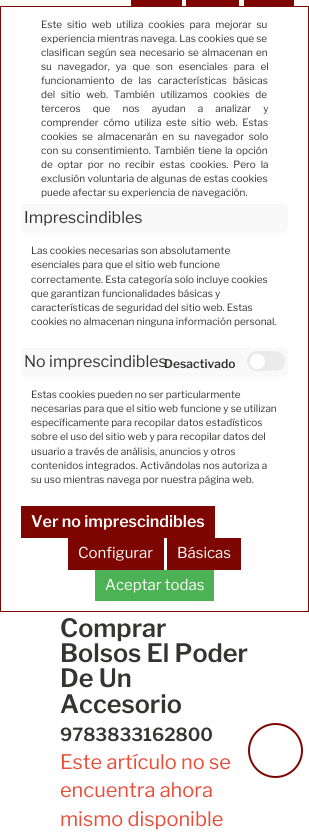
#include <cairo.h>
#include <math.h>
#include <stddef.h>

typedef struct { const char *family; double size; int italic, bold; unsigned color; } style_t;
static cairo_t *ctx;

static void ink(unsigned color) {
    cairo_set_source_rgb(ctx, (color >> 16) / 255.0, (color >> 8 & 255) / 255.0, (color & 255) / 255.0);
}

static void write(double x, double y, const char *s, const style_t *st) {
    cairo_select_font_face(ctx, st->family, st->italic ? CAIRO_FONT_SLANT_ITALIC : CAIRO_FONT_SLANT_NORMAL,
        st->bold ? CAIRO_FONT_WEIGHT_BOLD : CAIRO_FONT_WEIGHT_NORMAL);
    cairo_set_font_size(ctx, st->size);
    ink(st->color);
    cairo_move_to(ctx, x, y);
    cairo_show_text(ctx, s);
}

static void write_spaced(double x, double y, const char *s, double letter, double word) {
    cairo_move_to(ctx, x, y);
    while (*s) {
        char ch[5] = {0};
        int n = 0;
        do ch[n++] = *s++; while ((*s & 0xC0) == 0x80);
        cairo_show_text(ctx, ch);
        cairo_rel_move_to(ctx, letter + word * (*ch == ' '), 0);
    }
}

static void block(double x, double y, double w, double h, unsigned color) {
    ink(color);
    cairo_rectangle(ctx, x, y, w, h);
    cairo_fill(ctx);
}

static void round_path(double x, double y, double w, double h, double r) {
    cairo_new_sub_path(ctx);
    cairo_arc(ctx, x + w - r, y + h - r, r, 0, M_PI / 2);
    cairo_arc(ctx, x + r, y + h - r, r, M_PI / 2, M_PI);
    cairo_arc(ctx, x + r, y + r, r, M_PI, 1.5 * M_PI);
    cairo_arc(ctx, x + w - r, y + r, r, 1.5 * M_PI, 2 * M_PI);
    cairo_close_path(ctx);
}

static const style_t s1 = {"Libre Franklin", 10, 0, 0, 0x343433};
static const style_t s2 = {"Libre Franklin", 16, 0, 0, 0x343433};
static const style_t s3 = {"Libre Franklin SemiBold", 12, 0, 0, 0x343433};
static const style_t s4 = {"Libre Franklin SemiBold", 16, 0, 0, 0xfffefc};
static const style_t s5 = {"Libre Franklin", 15, 0, 0, 0xfffefc};
static const style_t s6 = {"Libre Franklin SemiBold", 25.25, 0, 0, 0x343433};
static const style_t s7 = {"Libre Franklin SemiBold", 18, 0, 0, 0x343433};
static const style_t s8 = {"Libre Franklin", 20, 0, 0, 0xe94c37};

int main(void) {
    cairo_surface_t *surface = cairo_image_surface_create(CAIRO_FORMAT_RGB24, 309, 838);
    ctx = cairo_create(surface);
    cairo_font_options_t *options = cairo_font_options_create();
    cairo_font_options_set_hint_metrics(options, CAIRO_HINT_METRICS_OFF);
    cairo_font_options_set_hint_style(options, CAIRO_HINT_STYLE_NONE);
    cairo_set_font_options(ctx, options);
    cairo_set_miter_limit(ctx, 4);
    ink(0xffffff);
    cairo_paint(ctx);
    block(0, 0, 309, 6, 0xfffbf6);
    block(186, 0, 53, 6, 0x7d0602);
    block(131, 0, 51, 6, 0x7d0602);
    block(244, 0, 50, 6, 0x7d0602);
    cairo_rectangle(ctx, 0.5, 6.5, 308, 605);
    cairo_set_line_width(ctx, 1);
    cairo_stroke(ctx);
    cairo_select_font_face(ctx, "Libre Franklin", CAIRO_FONT_SLANT_NORMAL, CAIRO_FONT_WEIGHT_NORMAL);
    cairo_set_font_size(ctx, 10);
    ink(0x343433);
    write_spaced(41, 28, "Este sitio web utiliza cookies para mejorar su", 0, 2.75);
    write(41, 42, "experiencia mientras navega. Las cookies que se", &s1);
    write_spaced(41, 56, "clasifican según sea necesario se almacenan en", 0, 1);
    write_spaced(41, 70, "su navegador, ya que son esenciales para el", 0, 3.75);
    write_spaced(41, 84, "funcionamiento de las características básicas", 0, 4);
    write_spaced(41, 98, "del sitio web. También utilizamos cookies de", 0, 3.5);
    write_spaced(41, 112, "terceros que nos ayudan a analizar y", 0, 10);
    write_spaced(41, 126, "comprender cómo utiliza este sitio web. Estas", 0, 2.5);
    write_spaced(41, 140, "cookies se almacenarán en su navegador solo", 0, 2.5);
    write_spaced(41, 154, "con su consentimiento. También tiene la opción", 0, 1);
    write_spaced(41, 168, "de optar por no recibir estas cookies. Pero la", 0, 2.75);
    write_spaced(41, 182, "exclusión voluntaria de algunas de estas cookies", 0, 0.25);
    write(41, 196, "puede afectar su experiencia de navegación.", &s1);
    ink(0xf9f9f9);
    round_path(21, 204, 267, 29, 5);
    cairo_fill(ctx);
    write(24, 223, "Imprescindibles", &s2);
    write(31, 254, "Las cookies necesarias son absolutamente", &s1);
    write(31, 268, "esenciales para que el sitio web funcione", &s1);
    write(31, 283, "correctamente. Esta categoría solo incluye cookies", &s1);
    write(31, 297, "que garantizan funcionalidades básicas y", &s1);
    write(31, 311, "características de seguridad del sitio web. Estas", &s1);
    write(31, 325, "cookies no almacenan ninguna información personal.", &s1);
    ink(0xf9f9f9);
    round_path(21, 348, 267, 29, 5);
    cairo_fill(ctx);
    write(24, 367, "No imprescindibles", &s2);
    ink(0xebebeb);
    round_path(247, 351, 38, 20, 10);
    cairo_fill(ctx);
    write(164, 368, "Desactivado", &s3);
    ink(0xffffff);
    cairo_new_path(ctx);
    cairo_arc(ctx, 257.5, 361.5, 7.5, 0, 2 * M_PI);
    cairo_fill(ctx);
    write(31, 398, "Estas cookies pueden no ser particularmente", &s1);
    write(31, 412, "necesarias para que el sitio web funcione y se utilizan", &s1);
    write(31, 426, "específicamente para recopilar datos estadísticos", &s1);
    write(31, 440, "sobre el uso del sitio web y para recopilar datos del", &s1);
    write(31, 455, "usuario a través de análisis, anuncios y otros", &s1);
    write(31, 469, "contenidos integrados. Activándolas nos autoriza a", &s1);
    write(31, 483, "su uso mientras navega por nuestra página web.", &s1);
    block(21, 506, 194, 32, 0x7d0602);
    write(31, 527, "Ver no imprescindibles", &s4);
    block(68, 538, 96, 32, 0x7d0602);
    write(78, 558, "Configurar", &s5);
    block(167, 538, 74, 32, 0x7d0602);
    write(177, 558, "Básicas", &s5);
    block(95, 570, 119, 31, 0x4db255);
    write(105, 590, "Aceptar todas", &s5);
    write(60, 637, "Comprar", &s6);
    write(60, 662, "Bolsos El Poder", &s6);
    write(60, 687, "De Un", &s6);
    write(60, 713, "Accesorio", &s6);
    write(60, 741, "9783833162800", &s7);
    write(60, 769, "Este artículo no se", &s8);
    write(60, 797, "encuentra ahora", &s8);
    write(60, 826, "mismo disponible", &s8);
    cairo_new_path(ctx);
    cairo_arc(ctx, 275.5, 750.5, 26.5, 0, 2 * M_PI);
    ink(0x7d0602);
    cairo_set_line_width(ctx, 2);
    cairo_stroke(ctx);
    cairo_surface_write_to_png(surface, "screenshot.png");
    cairo_font_options_destroy(options);
    cairo_destroy(ctx);
    cairo_surface_destroy(surface);
    return 0;
}
